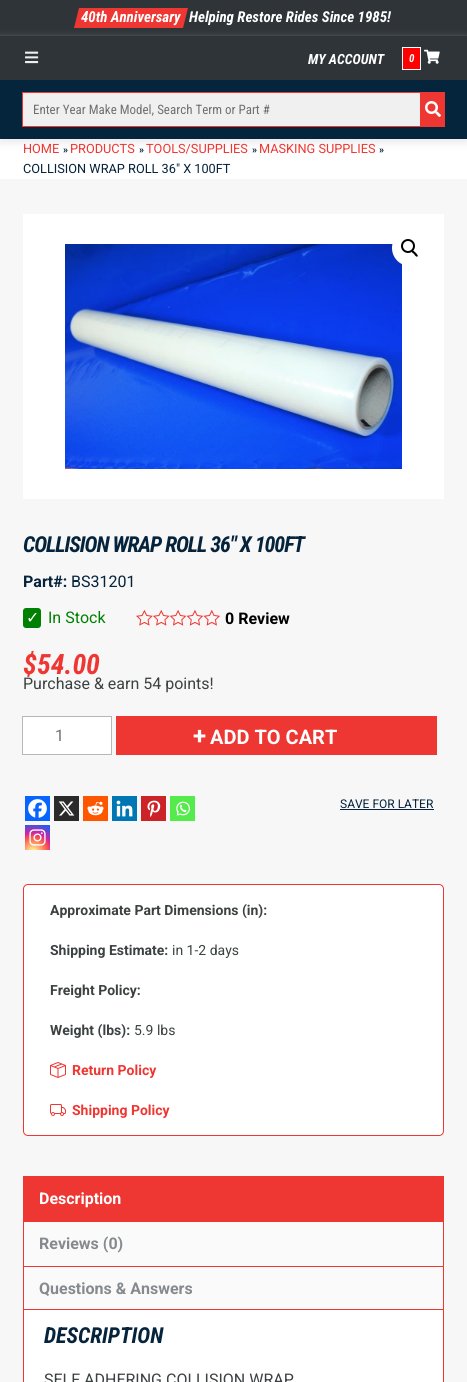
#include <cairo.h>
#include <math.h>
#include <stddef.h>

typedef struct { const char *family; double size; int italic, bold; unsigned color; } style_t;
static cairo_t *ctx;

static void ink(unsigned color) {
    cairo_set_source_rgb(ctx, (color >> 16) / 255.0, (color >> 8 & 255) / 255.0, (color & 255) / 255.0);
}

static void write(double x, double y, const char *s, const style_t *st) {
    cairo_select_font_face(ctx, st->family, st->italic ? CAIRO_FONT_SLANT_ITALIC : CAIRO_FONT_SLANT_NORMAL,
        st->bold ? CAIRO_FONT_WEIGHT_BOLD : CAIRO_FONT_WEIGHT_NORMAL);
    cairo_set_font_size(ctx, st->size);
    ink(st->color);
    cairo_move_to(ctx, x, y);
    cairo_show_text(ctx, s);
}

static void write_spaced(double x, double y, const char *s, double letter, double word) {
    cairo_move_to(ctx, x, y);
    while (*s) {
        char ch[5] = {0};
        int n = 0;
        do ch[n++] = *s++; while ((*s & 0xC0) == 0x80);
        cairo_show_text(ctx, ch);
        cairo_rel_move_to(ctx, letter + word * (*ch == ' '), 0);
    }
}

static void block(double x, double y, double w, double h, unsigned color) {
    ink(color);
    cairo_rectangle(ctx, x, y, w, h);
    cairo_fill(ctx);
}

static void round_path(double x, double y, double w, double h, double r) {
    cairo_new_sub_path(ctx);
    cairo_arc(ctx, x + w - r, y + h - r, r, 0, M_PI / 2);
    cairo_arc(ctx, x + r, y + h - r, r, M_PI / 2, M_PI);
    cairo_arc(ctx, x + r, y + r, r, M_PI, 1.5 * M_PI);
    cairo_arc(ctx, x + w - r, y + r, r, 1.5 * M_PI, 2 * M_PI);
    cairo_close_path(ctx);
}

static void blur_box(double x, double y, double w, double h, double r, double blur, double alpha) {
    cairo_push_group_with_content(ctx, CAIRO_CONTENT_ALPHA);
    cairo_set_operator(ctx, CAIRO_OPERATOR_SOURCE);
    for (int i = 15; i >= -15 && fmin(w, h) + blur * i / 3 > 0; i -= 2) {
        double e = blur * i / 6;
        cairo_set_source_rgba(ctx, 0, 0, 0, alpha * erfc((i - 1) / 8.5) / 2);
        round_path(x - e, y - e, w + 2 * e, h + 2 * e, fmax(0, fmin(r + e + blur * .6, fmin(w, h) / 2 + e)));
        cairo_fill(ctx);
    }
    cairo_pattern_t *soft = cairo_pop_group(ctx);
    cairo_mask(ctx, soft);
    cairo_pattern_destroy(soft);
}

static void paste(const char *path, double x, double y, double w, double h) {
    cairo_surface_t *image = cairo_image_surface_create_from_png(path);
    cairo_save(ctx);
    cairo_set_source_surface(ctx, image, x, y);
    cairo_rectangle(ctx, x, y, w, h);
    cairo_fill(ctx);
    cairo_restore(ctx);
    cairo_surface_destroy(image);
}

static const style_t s1 = {"Roboto Condensed", 15, 1, 1, 0xffffff};
static const style_t s2 = {"Roboto Condensed", 14, 1, 1, 0xffffff};
static const style_t s3 = {"Roboto Condensed", 11, 1, 1, 0xffffff};
static const style_t s4 = {"Roboto Condensed", 13, 0, 0, 0x707070};
static const style_t s5 = {"Roboto", 12.75, 0, 0, 0xee3732};
static const style_t s6 = {"Roboto", 10, 0, 1, 0x06233c};
static const style_t s7 = {"Roboto", 12.75, 0, 0, 0x06233c};
static const style_t s8 = {"Roboto", 16, 0, 1, 0x06233c};
static const style_t s9 = {"Roboto", 16, 0, 0, 0x06233c};
static const style_t s10 = {"DejaVu Sans", 16, 0, 0, 0xffffff};
static const style_t s11 = {"Roboto", 16, 0, 0, 0x008000};
static const style_t s12 = {"Roboto", 16, 0, 1, 0x000000};
static const style_t s13 = {"Roboto Condensed", 28, 1, 1, 0xee3732};
static const style_t s14 = {"Roboto", 16, 0, 0, 0x3c4142};
static const style_t s15 = {"Roboto", 16, 0, 0, 0x707070};
static const style_t s16 = {"Roboto", 24, 0, 1, 0xffffff};
static const style_t s17 = {"Roboto", 20, 0, 1, 0xffffff};
static const style_t s18 = {"Roboto", 12, 0, 0, 0x06233c};
static const style_t s19 = {"Roboto", 14, 0, 1, 0x3c4142};
static const style_t s20 = {"Roboto", 14, 0, 0, 0x3c4142};
static const style_t s21 = {"Roboto", 14, 0, 1, 0xee3732};
static const style_t s22 = {"Roboto", 16, 0, 1, 0xffffff};
static const style_t s23 = {"Roboto", 16, 0, 1, 0x868a8e};
static const style_t s24 = {"Roboto Condensed", 22, 1, 1, 0x06233c};

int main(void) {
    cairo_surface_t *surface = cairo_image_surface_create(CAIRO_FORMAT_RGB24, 467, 1382);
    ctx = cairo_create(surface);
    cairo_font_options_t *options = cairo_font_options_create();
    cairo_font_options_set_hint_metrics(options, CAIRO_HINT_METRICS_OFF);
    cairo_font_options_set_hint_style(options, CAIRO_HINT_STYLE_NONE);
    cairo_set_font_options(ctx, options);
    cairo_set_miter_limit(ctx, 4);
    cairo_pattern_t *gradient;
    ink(0xffffff);
    cairo_paint(ctx);
    block(0, 80, 467, 59, 0x05253c);
    block(0, 0, 467, 36, 0x2e3438);
    cairo_save(ctx);
    cairo_set_fill_rule(ctx, CAIRO_FILL_RULE_EVEN_ODD);
    cairo_new_path(ctx);
    cairo_move_to(ctx, 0, 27);
    cairo_line_to(ctx, 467, 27);
    cairo_line_to(ctx, 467, 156);
    cairo_line_to(ctx, 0, 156);
    cairo_close_path(ctx);
    cairo_move_to(ctx, 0, 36);
    cairo_line_to(ctx, 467, 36);
    cairo_line_to(ctx, 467, 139);
    cairo_line_to(ctx, 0, 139);
    cairo_close_path(ctx);
    cairo_clip(ctx);
    ink(0xe6e6e6);
    blur_box(0, 40, 467, 103, 0, 4, 0.8);
    cairo_restore(ctx);
    ink(0xee3733);
    cairo_new_path(ctx);
    cairo_move_to(ctx, 79, 8);
    cairo_line_to(ctx, 188, 8);
    cairo_line_to(ctx, 183, 28);
    cairo_line_to(ctx, 74, 28);
    cairo_close_path(ctx);
    cairo_fill(ctx);
    write(81, 22, "40th Anniversary", &s1);
    write(189, 22, "Helping Restore Rides Since 1985!", &s1);
    block(0, 36, 467, 44, 0x2e3438);
    paste("pic1.png", 25, 51, 14, 13);
    write(308, 64, "MY ACCOUNT", &s2);
    ink(0xff0000);
    cairo_rectangle(ctx, 402.5, 47.5, 18, 22);
    cairo_fill_preserve(ctx);
    ink(0xffffff);
    cairo_set_line_width(ctx, 1);
    cairo_stroke(ctx);
    write(409, 62, "0", &s3);
    paste("pic2.png", 424, 49, 16, 15);
    block(23, 93, 397, 33, 0xf0f0f0);
    cairo_rectangle(ctx, 22.5, 92.5, 422, 34);
    ink(0xee3732);
    cairo_stroke(ctx);
    write(33, 114, "Enter Year Make Model, Search Term or Part #", &s4);
    block(420, 93, 24, 33, 0xee3732);
    paste("pic3.png", 425, 101, 16, 16);
    write(23, 153, "HOME", &s5);
    write(63, 153, "»", &s6);
    write(70, 153, "PRODUCTS", &s5);
    write(139, 153, "»", &s6);
    write(146, 153, "TOOLS/SUPPLIES", &s5);
    write(252, 153, "»", &s6);
    write(259, 153, "MASKING SUPPLIES", &s5);
    write(379, 153, "»", &s6);
    write(23, 173, "COLLISION WRAP ROLL 36″ X 100FT", &s7);
    block(0, 179, 467, 1203, 0xf7f7f7);
    block(23, 214, 421, 285, 0xffffff);
    paste("pic4.png", 65, 244, 337, 225);
    cairo_arc(ctx, 410, 248, 18, 0, 2 * M_PI);
    cairo_fill(ctx);
    cairo_arc(ctx, 408, 246, 6, 0, 2 * M_PI);
    ink(0x000000);
    cairo_set_line_width(ctx, 2);
    cairo_stroke(ctx);
    cairo_new_path(ctx);
    cairo_move_to(ctx, 412, 250.5);
    cairo_curve_to(ctx, 413, 249.5, 414.5, 252, 415.5, 252.5);
    cairo_curve_to(ctx, 416, 253.5, 418.5, 255, 417.5, 256.5);
    cairo_curve_to(ctx, 416.5, 257.5, 414.5, 255, 414, 254);
    cairo_curve_to(ctx, 413.5, 253.5, 410.5, 252, 412, 250.5);
    cairo_close_path(ctx);
    cairo_fill(ctx);
    cairo_select_font_face(ctx, "Roboto Condensed", CAIRO_FONT_SLANT_ITALIC, CAIRO_FONT_WEIGHT_BOLD);
    cairo_set_font_size(ctx, 22);
    ink(0x06233c);
    write_spaced(23, 552, "COLLISION WRAP ROLL 36″ X 100FT", -1, 0);
    write(23, 587, "Part#:", &s8);
    write(71, 587, "BS31201", &s9);
    ink(0x008000);
    round_path(23, 608, 18, 20, 3);
    cairo_fill(ctx);
    write(26, 623, "✓", &s10);
    write(48, 623, "In Stock", &s11);
    paste("pic5.png", 136, 609, 84, 17);
    write(225, 624, "0 Review", &s12);
    write(23, 674, "$", &s13);
    write(37, 674, "54.00", &s13);
    write(23, 689, "Purchase & earn 54 points!", &s14);
    ink(0xffffff);
    cairo_rectangle(ctx, 22.5, 716.5, 89, 38);
    cairo_fill_preserve(ctx);
    ink(0xb7b7b7);
    cairo_set_line_width(ctx, 1);
    cairo_stroke(ctx);
    write(55, 741, "1", &s15);
    block(116, 716, 321, 39, 0xee3732);
    write(193, 744, "+", &s16);
    write(210, 744, "ADD TO CART", &s17);
    block(25, 796, 25, 25, 0x0765fe);
    paste("pic6.png", 28, 799, 19, 19);
    block(54, 796, 25, 25, 0x2a2a2a);
    paste("pic7.png", 58, 801, 17, 15);
    block(83, 796, 25, 25, 0xff5700);
    paste("pic8.png", 87, 801, 17, 15);
    block(112, 796, 25, 25, 0x0077b5);
    paste("pic9.png", 116, 800, 17, 17);
    block(141, 796, 25, 25, 0xcc2329);
    paste("pic10.png", 147, 800, 14, 17);
    block(170, 796, 25, 25, 0x55eb4c);
    paste("pic11.png", 176, 801, 14, 15);
    gradient = cairo_pattern_create_radial(33, 852, 0, 33, 852, 32);
    cairo_pattern_add_color_stop_rgba(gradient, 0, 0.992, 0.957, 0.592, 1);
    cairo_pattern_add_color_stop_rgba(gradient, 0.05, 0.992, 0.957, 0.592, 1);
    cairo_pattern_add_color_stop_rgba(gradient, 0.45, 0.992, 0.349, 0.286, 1);
    cairo_pattern_add_color_stop_rgba(gradient, 0.6, 0.839, 0.141, 0.624, 1);
    cairo_pattern_add_color_stop_rgba(gradient, 0.9, 0.157, 0.353, 0.922, 1);
    cairo_set_source(ctx, gradient);
    cairo_pattern_destroy(gradient);
    cairo_rectangle(ctx, 25, 825, 25, 25);
    cairo_fill(ctx);
    paste("pic12.png", 29, 829, 17, 17);
    write(340, 808, "SAVE FOR LATER", &s18);
    block(340, 809, 94, 1, 0x05233c);
    ink(0xffffff);
    round_path(23.5, 884.5, 420, 251, 4.5);
    cairo_fill_preserve(ctx);
    ink(0xee3732);
    cairo_stroke(ctx);
    write(50, 915, "Approximate Part Dimensions (in):", &s19);
    write(50, 955, "Shipping Estimate:", &s19);
    write(172, 955, "in 1-2 days", &s20);
    write(50, 995, "Freight Policy:", &s19);
    write(50, 1035, "Weight (lbs):", &s19);
    write(134, 1035, "5.9 lbs", &s20);
    paste("pic13.png", 50, 1062, 16, 16);
    write(72, 1075, "Return Policy", &s21);
    paste("pic14.png", 50, 1104, 16, 12);
    write(72, 1115, "Shipping Policy", &s21);
    block(23, 1176, 421, 46, 0xee3732);
    write(39, 1204, "Description", &s22);
    block(24, 1222, 419, 44, 0xfafafa);
    block(443, 1221, 1, 45, 0xee3732);
    block(23, 1221, 1, 45, 0xee3732);
    write(39, 1249, "Reviews (0)", &s23);
    block(24, 1267, 419, 42, 0xfafafa);
    block(23, 1266, 421, 1, 0xee3732);
    block(443, 1266, 1, 44, 0xee3732);
    block(23, 1266, 1, 44, 0xee3732);
    write(39, 1294, "Questions & Answers", &s23);
    block(23, 1309, 421, 1, 0xee3732);
    block(24, 1310, 419, 72, 0xffffff);
    block(443, 1310, 1, 72, 0xee3732);
    block(23, 1310, 1, 72, 0xee3732);
    write(44, 1343, "DESCRIPTION", &s24);
    write(44, 1385, "SELF ADHERING COLLISION WRAP", &s14);
    cairo_surface_write_to_png(surface, "screenshot.png");
    cairo_font_options_destroy(options);
    cairo_destroy(ctx);
    cairo_surface_destroy(surface);
    return 0;
}
